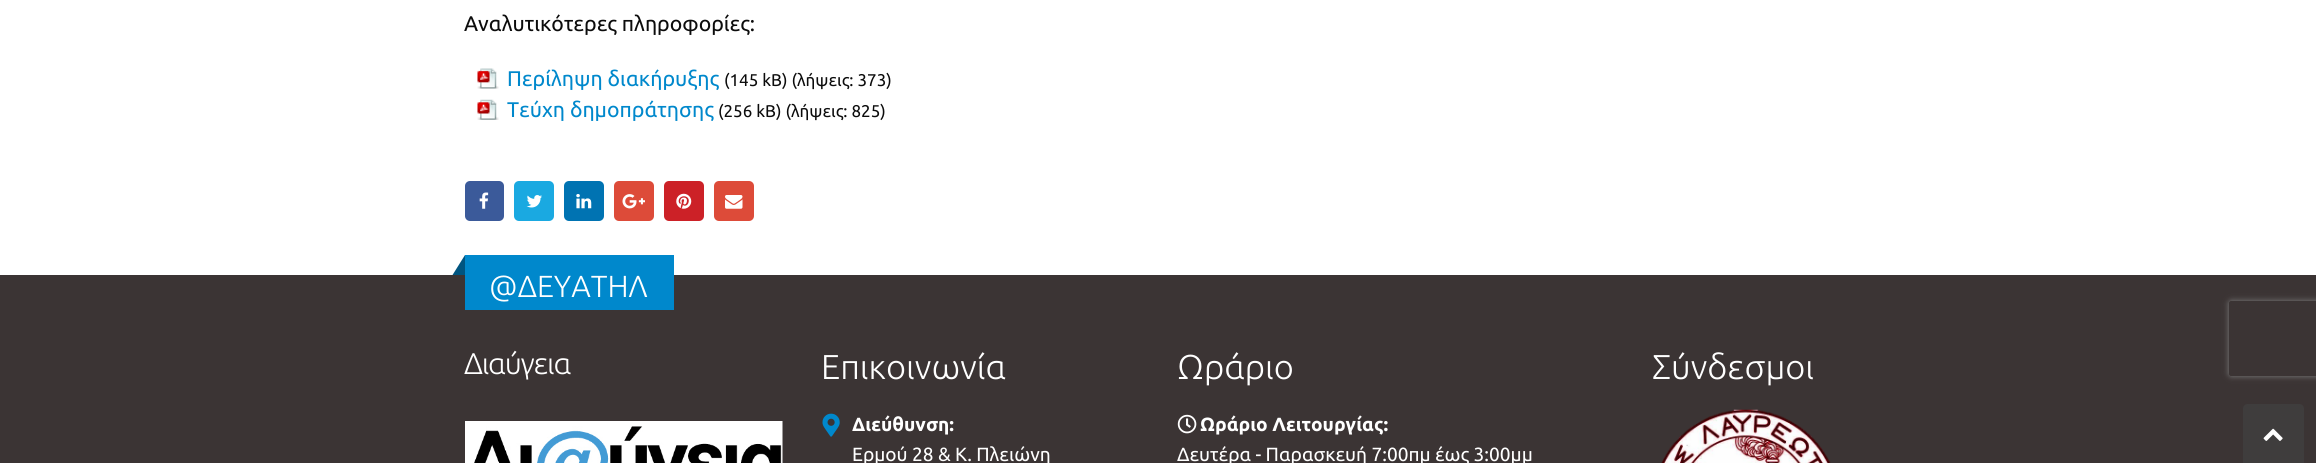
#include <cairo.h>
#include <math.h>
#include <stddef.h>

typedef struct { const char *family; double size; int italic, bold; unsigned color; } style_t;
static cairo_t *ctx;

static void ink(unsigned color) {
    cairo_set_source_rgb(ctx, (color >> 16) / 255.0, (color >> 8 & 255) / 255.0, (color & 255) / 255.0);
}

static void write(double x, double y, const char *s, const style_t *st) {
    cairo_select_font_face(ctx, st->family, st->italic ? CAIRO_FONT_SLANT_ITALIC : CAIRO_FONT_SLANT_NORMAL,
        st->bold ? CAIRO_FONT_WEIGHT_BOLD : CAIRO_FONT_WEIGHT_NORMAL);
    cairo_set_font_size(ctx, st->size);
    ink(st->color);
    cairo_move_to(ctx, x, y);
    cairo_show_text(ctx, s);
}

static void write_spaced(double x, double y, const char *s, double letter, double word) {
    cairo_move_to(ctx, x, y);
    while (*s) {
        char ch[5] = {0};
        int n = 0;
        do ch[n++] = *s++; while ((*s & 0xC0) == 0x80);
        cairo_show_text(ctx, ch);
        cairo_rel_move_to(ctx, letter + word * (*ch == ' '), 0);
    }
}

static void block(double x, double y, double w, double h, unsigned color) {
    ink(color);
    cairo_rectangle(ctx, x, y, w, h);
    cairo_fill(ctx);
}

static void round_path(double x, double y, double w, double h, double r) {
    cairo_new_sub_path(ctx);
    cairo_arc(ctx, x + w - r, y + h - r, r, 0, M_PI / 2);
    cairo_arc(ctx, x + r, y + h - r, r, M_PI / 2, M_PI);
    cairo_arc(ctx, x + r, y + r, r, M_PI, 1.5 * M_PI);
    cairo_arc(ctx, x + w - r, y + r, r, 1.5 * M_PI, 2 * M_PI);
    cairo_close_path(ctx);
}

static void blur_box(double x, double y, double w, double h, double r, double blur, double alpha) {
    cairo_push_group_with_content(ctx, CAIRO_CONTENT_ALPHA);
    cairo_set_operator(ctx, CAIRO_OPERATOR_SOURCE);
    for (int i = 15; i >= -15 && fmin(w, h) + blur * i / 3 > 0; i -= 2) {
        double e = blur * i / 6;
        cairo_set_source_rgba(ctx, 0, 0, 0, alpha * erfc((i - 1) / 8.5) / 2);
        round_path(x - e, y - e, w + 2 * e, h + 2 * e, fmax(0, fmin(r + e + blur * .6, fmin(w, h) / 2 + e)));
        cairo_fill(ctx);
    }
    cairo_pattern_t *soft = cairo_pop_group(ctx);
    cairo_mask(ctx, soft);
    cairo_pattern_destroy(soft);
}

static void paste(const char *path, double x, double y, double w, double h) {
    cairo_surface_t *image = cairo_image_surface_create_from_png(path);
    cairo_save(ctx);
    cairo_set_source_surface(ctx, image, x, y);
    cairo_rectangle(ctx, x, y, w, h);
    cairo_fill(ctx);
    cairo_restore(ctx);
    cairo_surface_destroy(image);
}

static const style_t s1 = {"Ubuntu", 21.25, 0, 0, 0x0c0c0c};
static const style_t s2 = {"Ubuntu", 21.25, 0, 0, 0x0088cc};
static const style_t s3 = {"Ubuntu", 17, 0, 0, 0x0c0c0c};
static const style_t s4 = {"Ubuntu Light", 30.5, 0, 0, 0xffffff};
static const style_t s5 = {"Ubuntu Light", 34.5, 0, 0, 0xffffff};
static const style_t s6 = {"Ubuntu", 19.1, 0, 1, 0xffffff};
static const style_t s7 = {"Ubuntu", 19.1, 0, 0, 0xffffff};

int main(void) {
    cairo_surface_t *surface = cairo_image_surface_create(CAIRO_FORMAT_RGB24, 2316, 463);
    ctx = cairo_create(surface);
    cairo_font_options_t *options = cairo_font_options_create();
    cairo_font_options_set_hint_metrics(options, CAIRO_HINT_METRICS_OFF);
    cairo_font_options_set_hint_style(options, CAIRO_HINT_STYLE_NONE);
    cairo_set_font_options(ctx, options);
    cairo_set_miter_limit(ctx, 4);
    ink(0xffffff);
    cairo_paint(ctx);
    write(464, 31, "Αναλυτικότερες πληροφορίες:", &s1);
    paste("pic1.png", 477, 68, 22, 21);
    write(507, 86, "Περίληψη διακήρυξης", &s2);
    write(724, 86, "(145 kB) (λήψεις: 373)", &s3);
    paste("pic2.png", 477, 99, 22, 21);
    write(507, 117, "Τεύχη δημοπράτησης", &s2);
    write(718, 117, "(256 kB) (λήψεις: 825)", &s3);
    ink(0x3b5a9a);
    round_path(465, 181, 39, 40, 5);
    cairo_fill(ctx);
    paste("pic3.png", 479, 192, 10, 17);
    ink(0x1aa9e1);
    round_path(514, 181, 40, 40, 5);
    cairo_fill(ctx);
    paste("pic4.png", 526, 195, 16, 13);
    ink(0x0073b2);
    round_path(564, 181, 40, 40, 5);
    cairo_fill(ctx);
    paste("pic5.png", 576, 194, 16, 15);
    ink(0xdd4b39);
    round_path(614, 181, 40, 40, 5);
    cairo_fill(ctx);
    paste("pic6.png", 622, 194, 23, 15);
    ink(0xcc2127);
    round_path(664, 181, 40, 40, 5);
    cairo_fill(ctx);
    paste("pic7.png", 676, 193, 16, 16);
    ink(0xdd4b39);
    round_path(714, 181, 40, 40, 5);
    cairo_fill(ctx);
    paste("pic8.png", 725, 195, 18, 14);
    block(0, 275, 2316, 188, 0x3b3434);
    block(465, 255, 209, 55, 0x0088cc);
    ink(0x005580);
    cairo_new_path(ctx);
    cairo_move_to(ctx, 465, 255);
    cairo_line_to(ctx, 465, 275);
    cairo_line_to(ctx, 452.5, 275);
    cairo_close_path(ctx);
    cairo_fill(ctx);
    write(489, 297, "@ΔΕΥΑΤΗΛ", &s4);
    cairo_set_font_size(ctx, 30);
    write_spaced(464, 374, "Διαύγεια", -1.25, 0);
    paste("pic9.png", 465, 421, 318, 42);
    write(821, 379, "Επικοινωνία", &s5);
    paste("pic10.png", 822, 413, 18, 24);
    write(852, 431, "Διεύθυνση:", &s6);
    write(852, 461, "Ερμού 28 & Κ. Πλειώνη", &s7);
    write(1177, 379, "Ωράριο", &s5);
    paste("pic11.png", 1177, 414, 20, 20);
    write(1200, 431, "Ωράριο Λειτουργίας:", &s6);
    write(1177, 461, "Δευτέρα - Παρασκευή 7:00πμ έως 3:00μμ", &s7);
    write(1652, 379, "Σύνδεσμοι", &s5);
    paste("pic12.png", 1661, 409, 170, 54);
    cairo_save(ctx);
    cairo_set_fill_rule(ctx, CAIRO_FILL_RULE_EVEN_ODD);
    cairo_new_path(ctx);
    cairo_move_to(ctx, 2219, 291);
    cairo_line_to(ctx, 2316, 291);
    cairo_line_to(ctx, 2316, 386);
    cairo_line_to(ctx, 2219, 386);
    cairo_close_path(ctx);
    cairo_move_to(ctx, 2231.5, 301);
    cairo_line_to(ctx, 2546.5, 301);
    cairo_curve_to(ctx, 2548, 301, 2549, 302, 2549, 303.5);
    cairo_line_to(ctx, 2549, 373.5);
    cairo_curve_to(ctx, 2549, 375, 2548, 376, 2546.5, 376);
    cairo_line_to(ctx, 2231.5, 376);
    cairo_curve_to(ctx, 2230, 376, 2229, 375, 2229, 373.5);
    cairo_line_to(ctx, 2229, 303.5);
    cairo_curve_to(ctx, 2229, 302, 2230, 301, 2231.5, 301);
    cairo_close_path(ctx);
    cairo_clip(ctx);
    ink(0x808080);
    blur_box(2229, 301, 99, 75, 2.5, 3, 1);
    cairo_restore(ctx);
    ink(0x3f3d3d);
    cairo_new_path(ctx);
    cairo_move_to(ctx, 2248, 404);
    cairo_line_to(ctx, 2299, 404);
    cairo_curve_to(ctx, 2302, 404, 2304, 406, 2304, 409);
    cairo_line_to(ctx, 2304, 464);
    cairo_line_to(ctx, 2243, 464);
    cairo_line_to(ctx, 2243, 409);
    cairo_curve_to(ctx, 2243, 406, 2245, 404, 2248, 404);
    cairo_close_path(ctx);
    cairo_fill(ctx);
    paste("pic13.png", 2263, 428, 20, 13);
    cairo_surface_write_to_png(surface, "screenshot.png");
    cairo_font_options_destroy(options);
    cairo_destroy(ctx);
    cairo_surface_destroy(surface);
    return 0;
}
